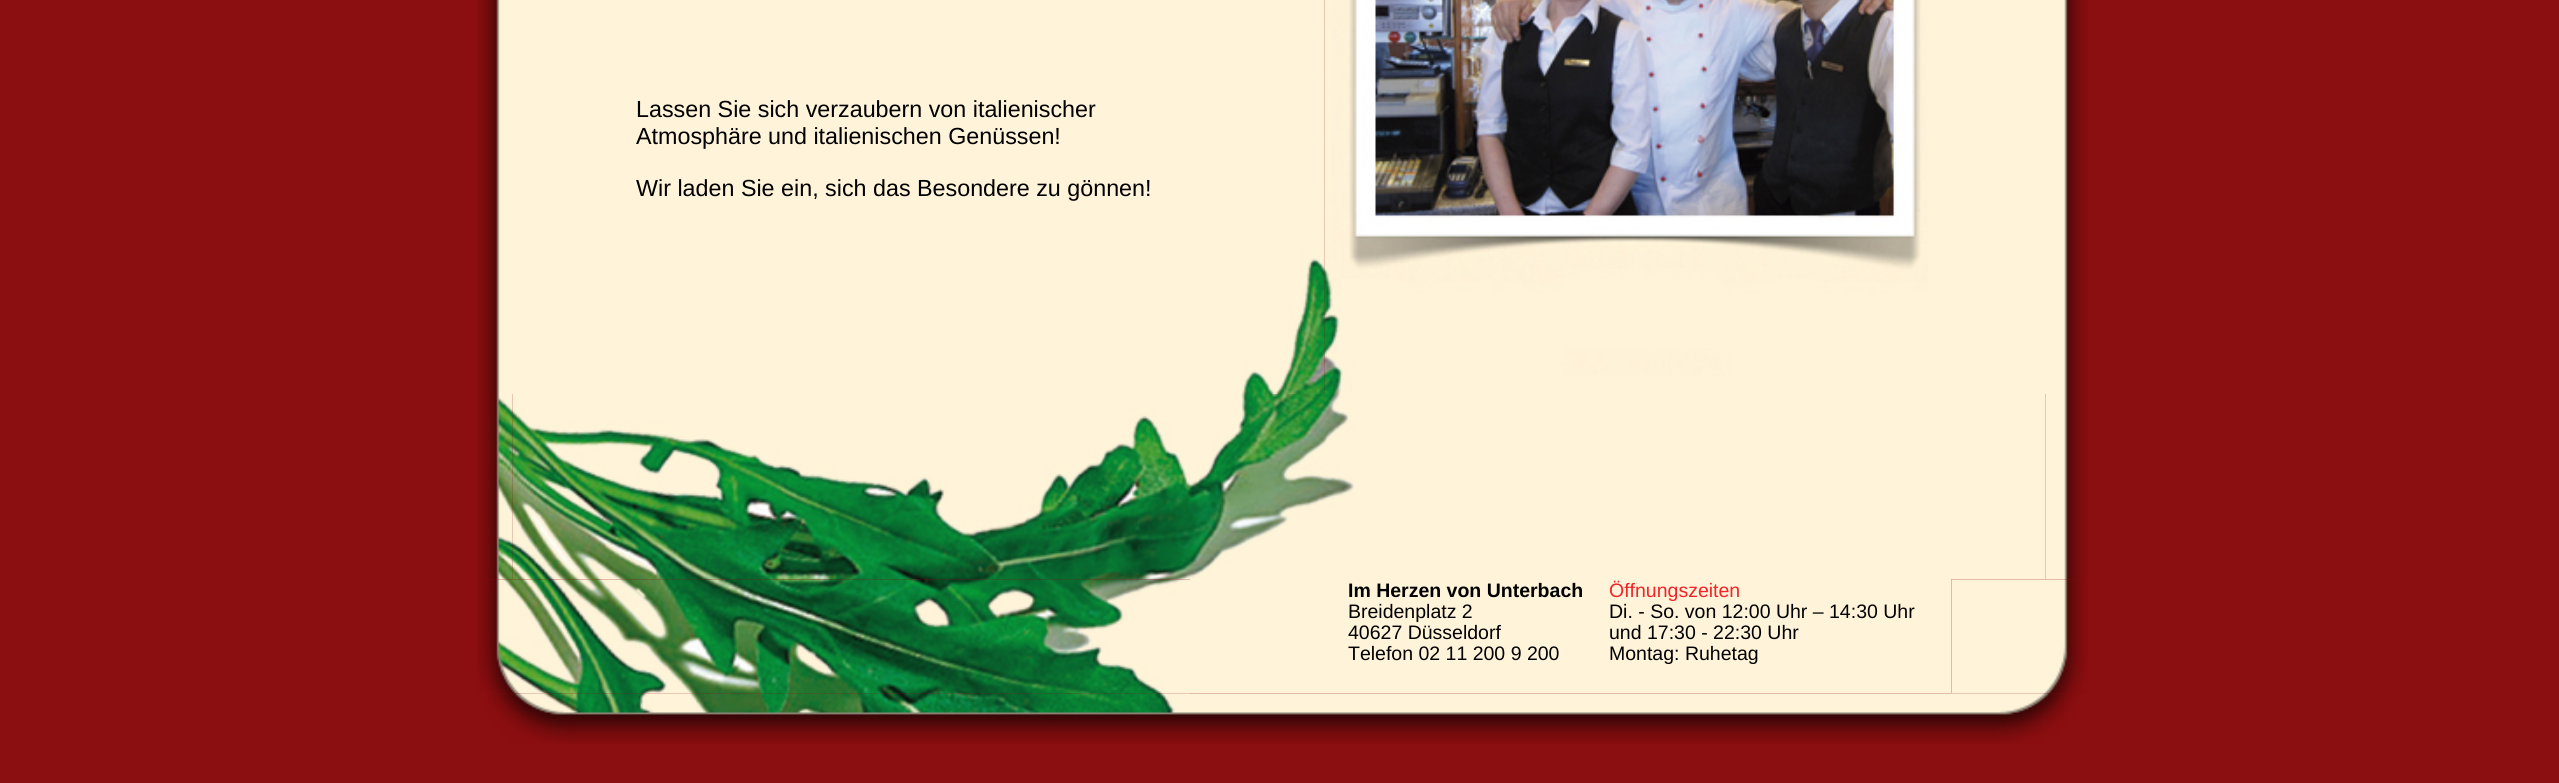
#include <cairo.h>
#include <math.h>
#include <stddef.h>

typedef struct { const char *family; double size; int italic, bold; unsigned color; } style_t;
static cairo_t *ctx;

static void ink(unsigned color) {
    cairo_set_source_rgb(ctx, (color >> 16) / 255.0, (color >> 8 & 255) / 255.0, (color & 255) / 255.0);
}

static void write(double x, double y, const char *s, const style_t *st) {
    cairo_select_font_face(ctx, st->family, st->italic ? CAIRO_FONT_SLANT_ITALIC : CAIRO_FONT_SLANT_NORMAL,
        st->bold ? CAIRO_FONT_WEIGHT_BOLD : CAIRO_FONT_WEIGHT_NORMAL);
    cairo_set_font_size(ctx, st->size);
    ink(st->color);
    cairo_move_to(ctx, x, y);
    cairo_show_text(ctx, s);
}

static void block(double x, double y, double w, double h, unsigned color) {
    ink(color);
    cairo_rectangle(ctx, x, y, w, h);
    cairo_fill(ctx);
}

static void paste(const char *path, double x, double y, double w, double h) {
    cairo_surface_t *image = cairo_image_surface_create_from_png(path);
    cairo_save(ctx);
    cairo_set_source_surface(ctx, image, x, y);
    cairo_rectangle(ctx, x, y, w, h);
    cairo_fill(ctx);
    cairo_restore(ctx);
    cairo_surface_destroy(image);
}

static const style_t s1 = {"Liberation Sans", 23.3, 0, 0, 0x000000};
static const style_t s2 = {"Liberation Sans", 19.5, 0, 1, 0x000000};
static const style_t s3 = {"Liberation Sans", 19.5, 0, 0, 0x000000};
static const style_t s4 = {"Liberation Sans", 19.5, 0, 0, 0xf32329};

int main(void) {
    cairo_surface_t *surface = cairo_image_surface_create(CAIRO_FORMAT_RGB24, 2559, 783);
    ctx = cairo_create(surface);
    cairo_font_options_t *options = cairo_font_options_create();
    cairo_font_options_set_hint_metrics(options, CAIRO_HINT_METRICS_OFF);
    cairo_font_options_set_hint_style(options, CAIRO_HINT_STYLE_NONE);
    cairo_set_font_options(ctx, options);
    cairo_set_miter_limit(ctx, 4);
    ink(0x8b0e10);
    cairo_paint(ctx);
    paste("pic1.png", 477, 0, 35, 394);
    block(512, 0, 104, 394, 0xfff3d9);
    block(616, 0, 574, 394, 0xfff4d9);
    write(636, 117, "Lassen Sie sich verzaubern von italienischer", &s1);
    write(636, 144, "Atmosphäre und italienischen Genüssen!", &s1);
    write(636, 196, "Wir laden Sie ein, sich das Besondere zu gönnen!", &s1);
    paste("pic2.png", 1190, 0, 135, 394);
    paste("pic3.png", 1324, 0, 627, 394);
    block(1951, 0, 95, 394, 0xfff3d9);
    paste("pic4.png", 2046, 0, 42, 394);
    paste("pic5.png", 477, 394, 36, 186);
    block(1190, 579, 761, 114, 0xfff4d9);
    paste("pic6.png", 512, 394, 1534, 186);
    paste("pic7.png", 2045, 394, 43, 186);
    paste("pic8.png", 477, 579, 713, 115);
    write(1348, 597, "Im Herzen von Unterbach", &s2);
    write(1348, 618, "Breidenplatz 2", &s3);
    write(1348, 639, "40627 Düsseldorf", &s3);
    write(1348, 660, "Telefon 02 11 200 9 200", &s3);
    write(1609, 597, "Öffnungszeiten", &s4);
    write(1609, 618, "Di. - So. von 12:00 Uhr – 14:30 Uhr", &s3);
    write(1609, 639, "und 17:30 - 22:30 Uhr", &s3);
    write(1609, 660, "Montag: Ruhetag", &s3);
    paste("pic9.png", 1951, 579, 137, 115);
    paste("pic10.png", 487, 693, 1592, 51);
    cairo_surface_write_to_png(surface, "screenshot.png");
    cairo_font_options_destroy(options);
    cairo_destroy(ctx);
    cairo_surface_destroy(surface);
    return 0;
}
